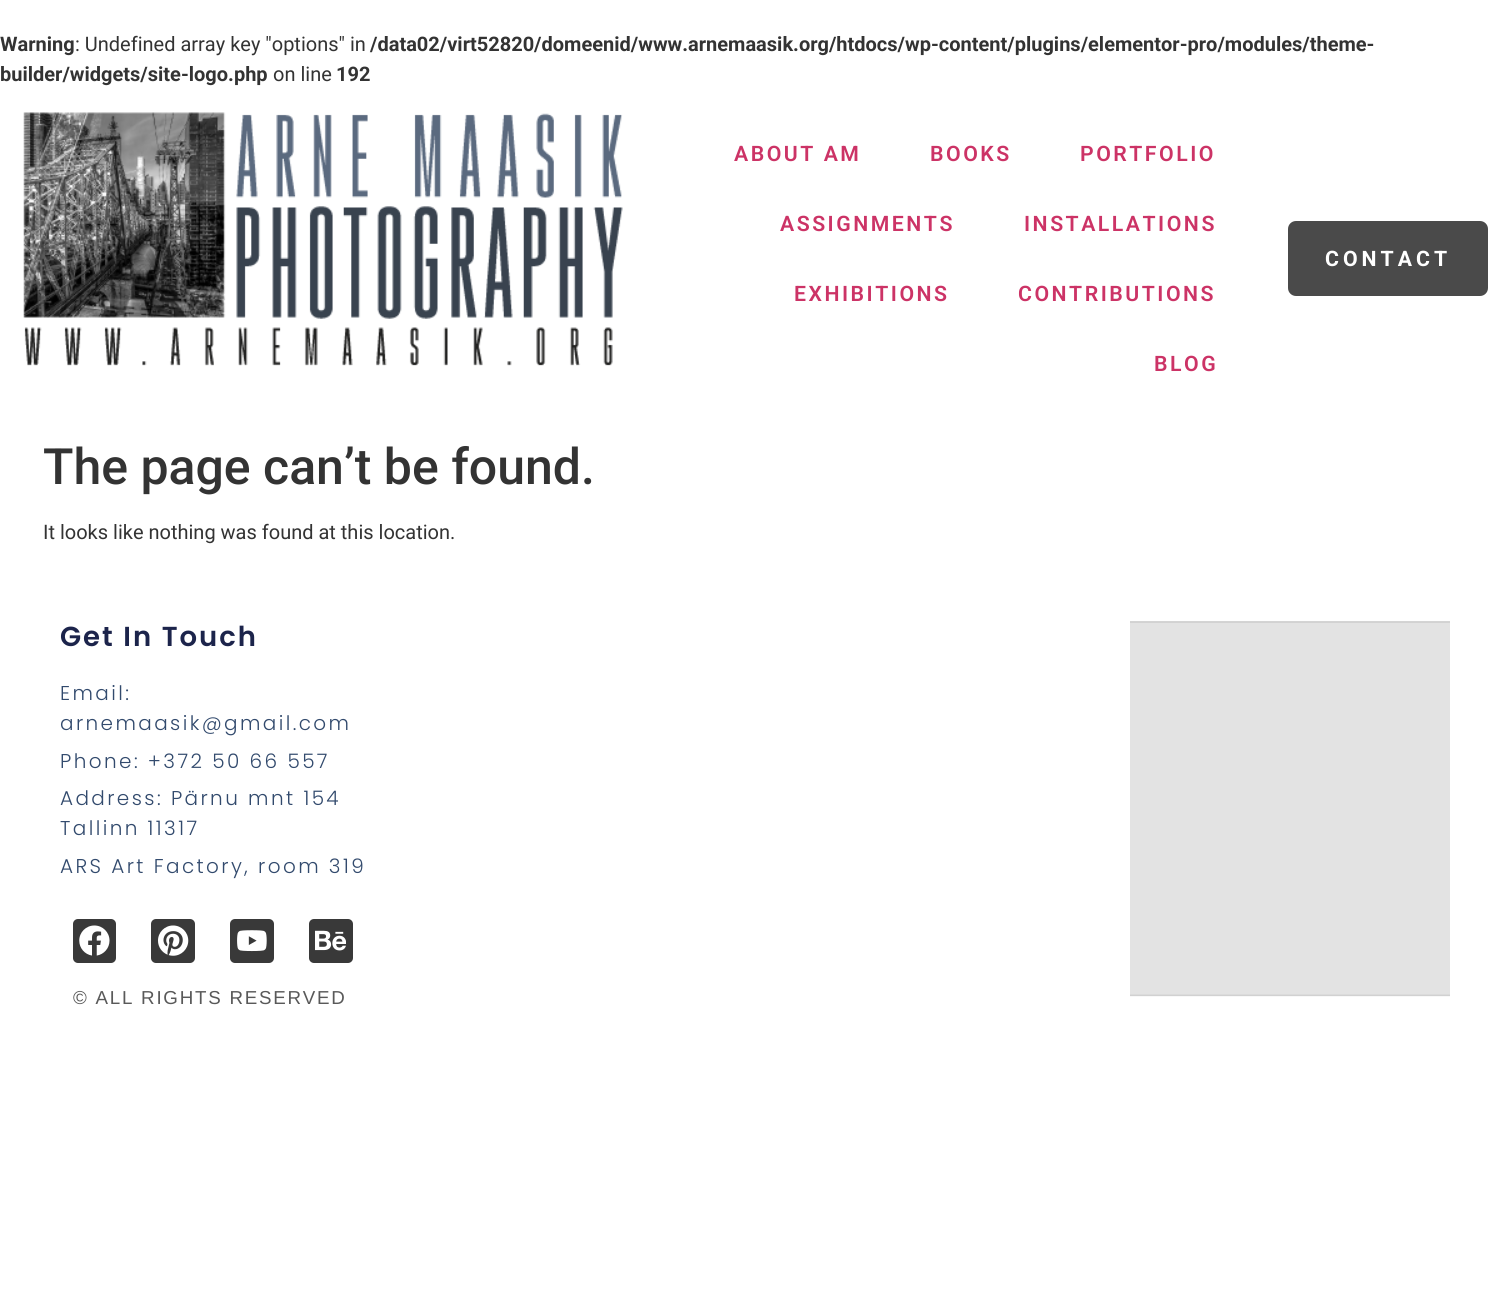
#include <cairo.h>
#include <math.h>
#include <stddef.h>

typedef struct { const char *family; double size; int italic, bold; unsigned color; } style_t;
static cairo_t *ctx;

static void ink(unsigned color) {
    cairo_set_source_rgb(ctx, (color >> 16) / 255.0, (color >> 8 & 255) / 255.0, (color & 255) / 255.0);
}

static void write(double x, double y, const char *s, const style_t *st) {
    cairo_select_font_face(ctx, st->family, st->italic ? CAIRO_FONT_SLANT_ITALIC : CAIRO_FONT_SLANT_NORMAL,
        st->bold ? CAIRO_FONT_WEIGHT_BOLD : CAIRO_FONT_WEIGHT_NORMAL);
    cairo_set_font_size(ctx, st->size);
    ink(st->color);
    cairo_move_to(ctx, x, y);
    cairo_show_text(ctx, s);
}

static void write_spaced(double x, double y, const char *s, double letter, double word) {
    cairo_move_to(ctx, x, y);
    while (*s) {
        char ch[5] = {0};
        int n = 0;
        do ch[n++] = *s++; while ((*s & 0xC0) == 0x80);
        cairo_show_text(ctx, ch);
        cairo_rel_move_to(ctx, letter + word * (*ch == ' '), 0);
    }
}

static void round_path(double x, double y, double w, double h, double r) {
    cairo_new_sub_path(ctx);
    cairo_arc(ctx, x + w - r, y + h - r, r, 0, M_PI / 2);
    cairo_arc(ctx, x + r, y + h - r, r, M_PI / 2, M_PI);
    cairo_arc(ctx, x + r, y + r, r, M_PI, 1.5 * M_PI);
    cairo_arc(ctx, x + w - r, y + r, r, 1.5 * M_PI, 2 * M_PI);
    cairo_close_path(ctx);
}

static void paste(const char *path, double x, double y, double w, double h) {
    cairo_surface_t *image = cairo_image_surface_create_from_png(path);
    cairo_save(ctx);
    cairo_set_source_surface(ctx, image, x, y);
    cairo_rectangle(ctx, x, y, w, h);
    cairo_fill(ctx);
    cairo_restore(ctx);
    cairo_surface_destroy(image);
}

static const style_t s1 = {"Roboto", 20, 0, 1, 0x333333};
static const style_t s2 = {"Roboto", 20, 0, 0, 0x333333};
static const style_t s3 = {"Roboto Medium", 50, 0, 0, 0x333333};

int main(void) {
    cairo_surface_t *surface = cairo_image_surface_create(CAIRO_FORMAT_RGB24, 1509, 1300);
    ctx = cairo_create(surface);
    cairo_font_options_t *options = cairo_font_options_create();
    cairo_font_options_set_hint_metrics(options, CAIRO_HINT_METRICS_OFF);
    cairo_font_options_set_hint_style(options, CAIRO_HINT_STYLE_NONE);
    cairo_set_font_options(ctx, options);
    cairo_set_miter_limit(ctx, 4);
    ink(0xffffff);
    cairo_paint(ctx);
    write(0, 51, "Warning", &s1);
    write(75, 51, ": Undefined array key \"options\" in", &s2);
    write(370, 51, "/data02/virt52820/domeenid/www.arnemaasik.org/htdocs/wp-content/plugins/elementor-pro/modules/theme-", &s1);
    write(0, 81, "builder/widgets/site-logo.php", &s1);
    write(273, 81, "on line", &s2);
    write(336, 81, "192", &s1);
    paste("pic1.png", 23, 112, 600, 254);
    cairo_select_font_face(ctx, "Roboto SemiBold", CAIRO_FONT_SLANT_NORMAL, CAIRO_FONT_WEIGHT_NORMAL);
    cairo_set_font_size(ctx, 21.25);
    ink(0xcc3366);
    write_spaced(734, 161, "ABOUT AM", 2.5, 0);
    write_spaced(930, 161, "BOOKS", 2.5, 0);
    write_spaced(1080, 161, "PORTFOLIO", 2.5, 0);
    write_spaced(780, 231, "ASSIGNMENTS", 2.5, 0);
    write_spaced(1024, 231, "INSTALLATIONS", 2.5, 0);
    write_spaced(794, 301, "EXHIBITIONS", 2.5, 0);
    write_spaced(1018, 301, "CONTRIBUTIONS", 2.5, 0);
    write_spaced(1154, 371, "BLOG", 2.5, 0);
    ink(0x4a4a4a);
    round_path(1288, 221, 200, 75, 8);
    cairo_fill(ctx);
    cairo_select_font_face(ctx, "Roboto", CAIRO_FONT_SLANT_NORMAL, CAIRO_FONT_WEIGHT_BOLD);
    ink(0xffffff);
    write_spaced(1325, 266, "CONTACT", 4, 0);
    write(43, 484, "The page can’t be found.", &s3);
    write(43, 539, "It looks like nothing was found at this location.", &s2);
    cairo_select_font_face(ctx, "Poppins SemiBold", CAIRO_FONT_SLANT_NORMAL, CAIRO_FONT_WEIGHT_NORMAL);
    cairo_set_font_size(ctx, 27.5);
    ink(0x1c244b);
    write_spaced(60, 646, "Get In Touch", 2, 0);
    cairo_select_font_face(ctx, "Poppins Light", CAIRO_FONT_SLANT_NORMAL, CAIRO_FONT_WEIGHT_NORMAL);
    cairo_set_font_size(ctx, 20);
    ink(0x324a6d);
    write_spaced(60, 700, "Email:", 2.4, 0);
    write_spaced(60, 730, "arnemaasik@gmail.com", 2.4, 0);
    write_spaced(60, 768, "Phone: +372 50 66 557", 2.4, 0);
    write_spaced(60, 805, "Address: Pärnu mnt 154", 2.4, 0);
    write_spaced(60, 835, "Tallinn 11317", 2.4, 0);
    write_spaced(60, 873, "ARS Art Factory, room 319", 2.4, 0);
    ink(0x393939);
    round_path(73, 919, 43, 44, 5);
    cairo_fill(ctx);
    paste("pic2.png", 79, 925, 31, 31);
    round_path(151, 919, 44, 44, 5);
    cairo_fill(ctx);
    paste("pic3.png", 158, 925, 31, 31);
    round_path(230, 919, 44, 44, 5);
    cairo_fill(ctx);
    paste("pic4.png", 237, 930, 30, 22);
    round_path(309, 919, 44, 44, 5);
    cairo_fill(ctx);
    paste("pic5.png", 315, 930, 31, 21);
    cairo_select_font_face(ctx, "Liberation Sans", CAIRO_FONT_SLANT_NORMAL, CAIRO_FONT_WEIGHT_NORMAL);
    cairo_set_font_size(ctx, 18.75);
    ink(0x595959);
    write_spaced(73, 1004, "© ALL RIGHTS RESERVED", 1.75, 0);
    paste("pic6.png", 1130, 621, 320, 376);
    cairo_surface_write_to_png(surface, "screenshot.png");
    cairo_font_options_destroy(options);
    cairo_destroy(ctx);
    cairo_surface_destroy(surface);
    return 0;
}
